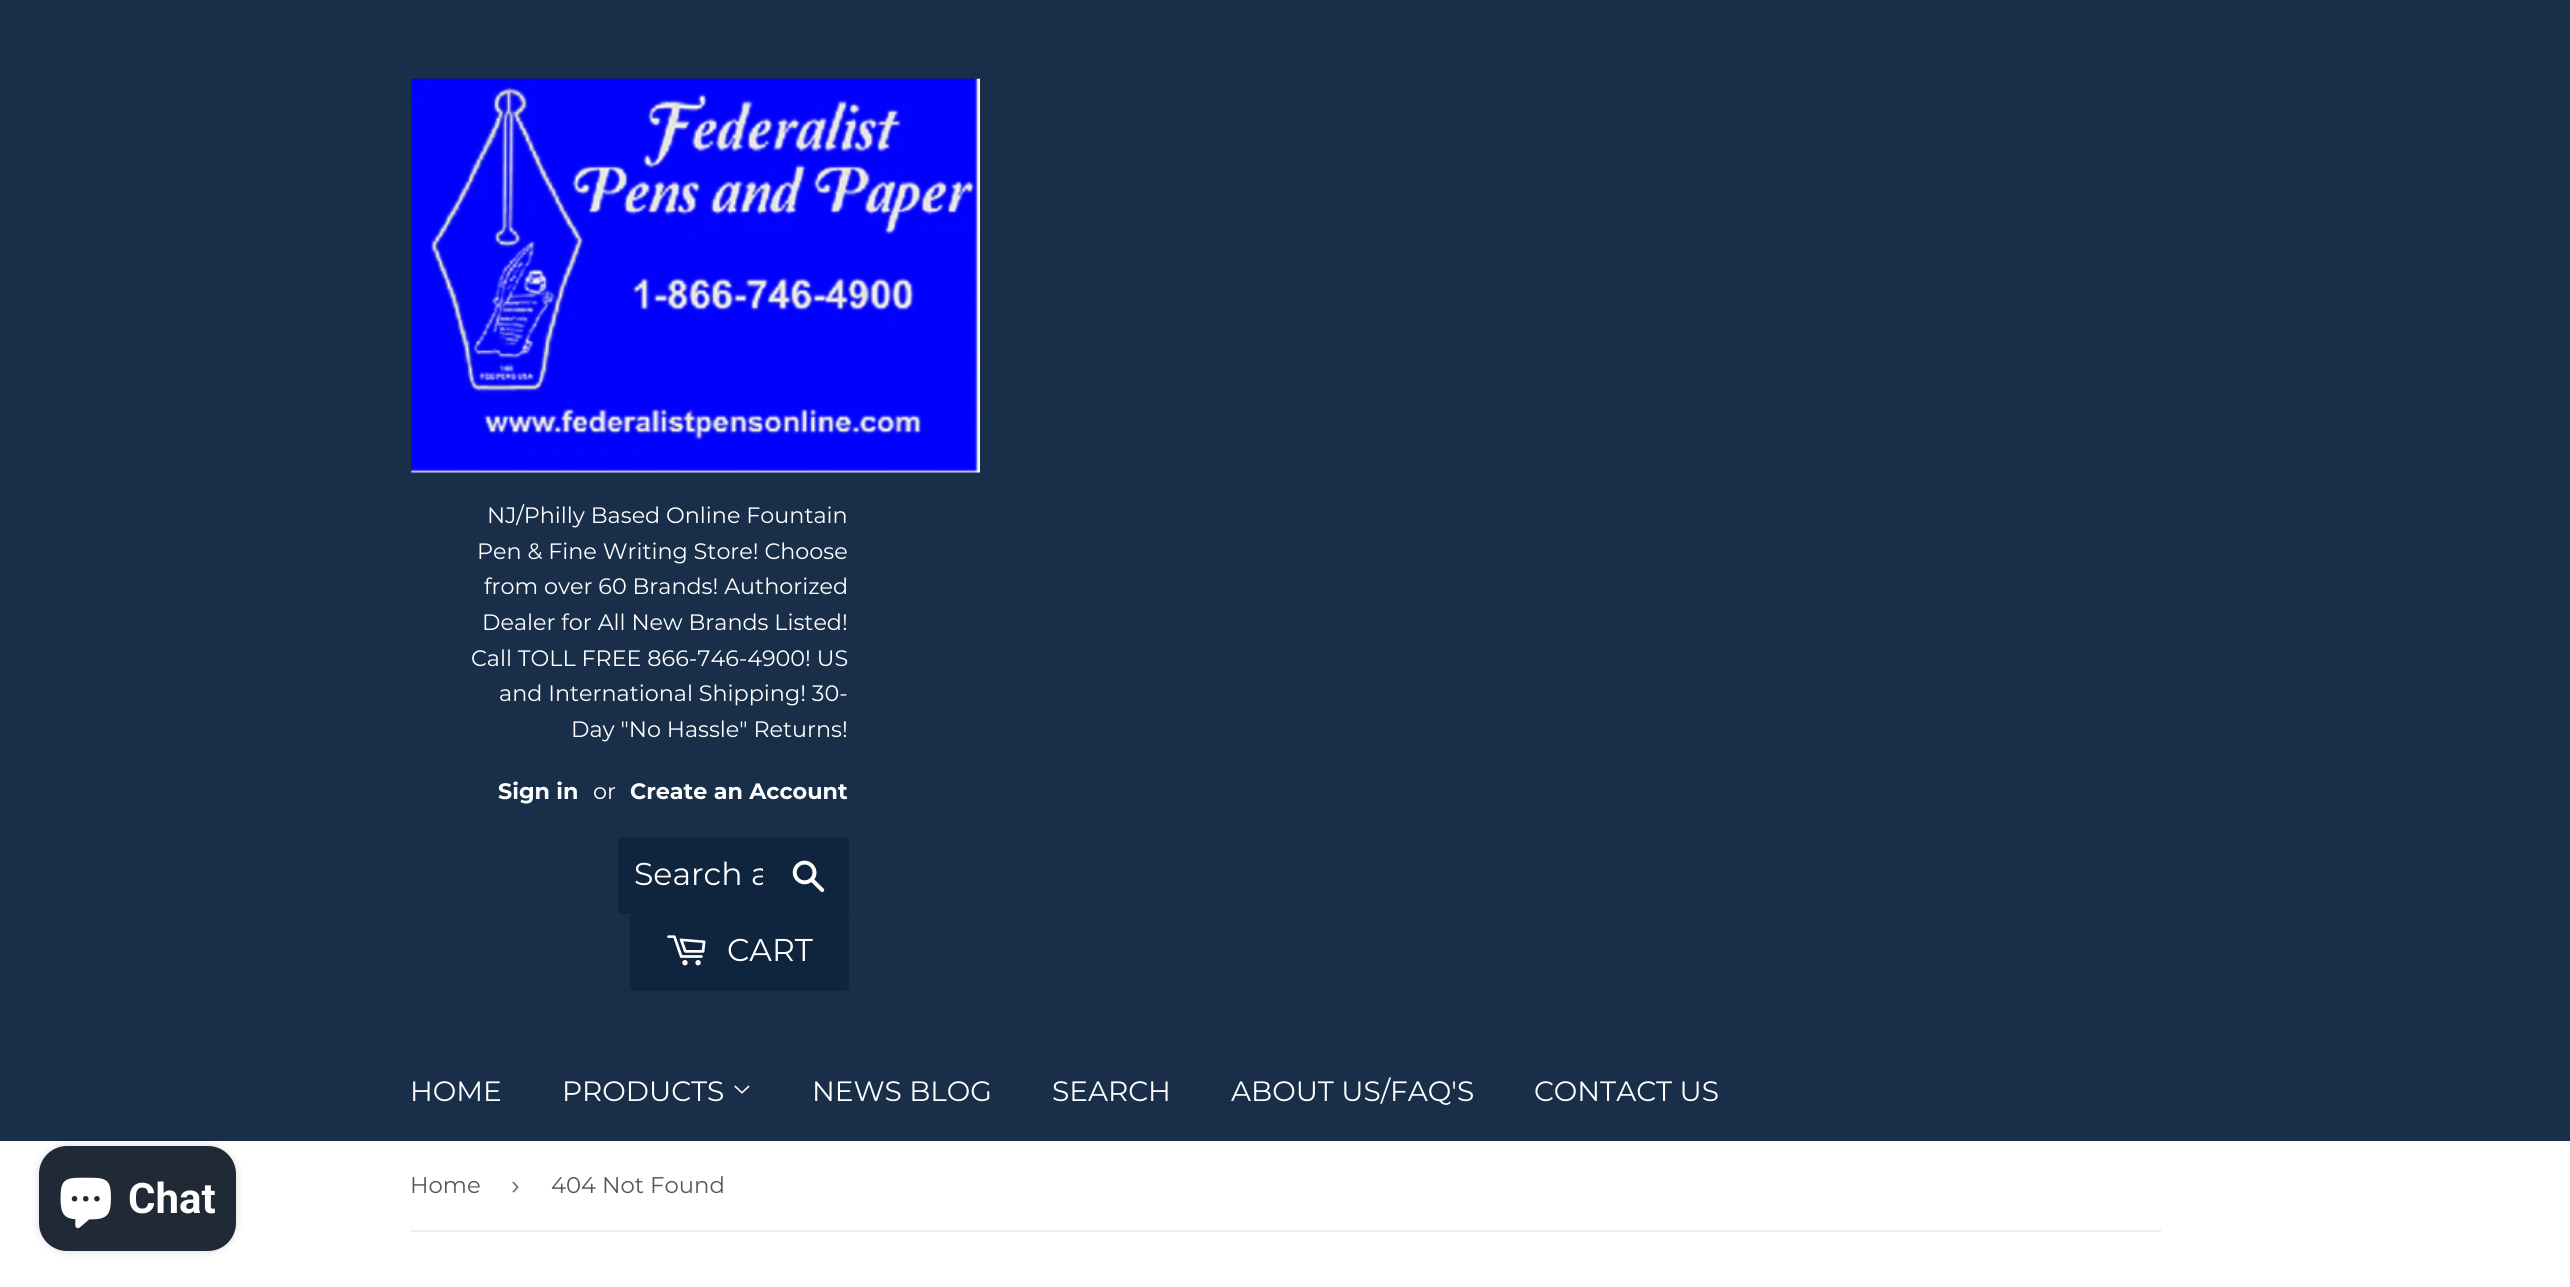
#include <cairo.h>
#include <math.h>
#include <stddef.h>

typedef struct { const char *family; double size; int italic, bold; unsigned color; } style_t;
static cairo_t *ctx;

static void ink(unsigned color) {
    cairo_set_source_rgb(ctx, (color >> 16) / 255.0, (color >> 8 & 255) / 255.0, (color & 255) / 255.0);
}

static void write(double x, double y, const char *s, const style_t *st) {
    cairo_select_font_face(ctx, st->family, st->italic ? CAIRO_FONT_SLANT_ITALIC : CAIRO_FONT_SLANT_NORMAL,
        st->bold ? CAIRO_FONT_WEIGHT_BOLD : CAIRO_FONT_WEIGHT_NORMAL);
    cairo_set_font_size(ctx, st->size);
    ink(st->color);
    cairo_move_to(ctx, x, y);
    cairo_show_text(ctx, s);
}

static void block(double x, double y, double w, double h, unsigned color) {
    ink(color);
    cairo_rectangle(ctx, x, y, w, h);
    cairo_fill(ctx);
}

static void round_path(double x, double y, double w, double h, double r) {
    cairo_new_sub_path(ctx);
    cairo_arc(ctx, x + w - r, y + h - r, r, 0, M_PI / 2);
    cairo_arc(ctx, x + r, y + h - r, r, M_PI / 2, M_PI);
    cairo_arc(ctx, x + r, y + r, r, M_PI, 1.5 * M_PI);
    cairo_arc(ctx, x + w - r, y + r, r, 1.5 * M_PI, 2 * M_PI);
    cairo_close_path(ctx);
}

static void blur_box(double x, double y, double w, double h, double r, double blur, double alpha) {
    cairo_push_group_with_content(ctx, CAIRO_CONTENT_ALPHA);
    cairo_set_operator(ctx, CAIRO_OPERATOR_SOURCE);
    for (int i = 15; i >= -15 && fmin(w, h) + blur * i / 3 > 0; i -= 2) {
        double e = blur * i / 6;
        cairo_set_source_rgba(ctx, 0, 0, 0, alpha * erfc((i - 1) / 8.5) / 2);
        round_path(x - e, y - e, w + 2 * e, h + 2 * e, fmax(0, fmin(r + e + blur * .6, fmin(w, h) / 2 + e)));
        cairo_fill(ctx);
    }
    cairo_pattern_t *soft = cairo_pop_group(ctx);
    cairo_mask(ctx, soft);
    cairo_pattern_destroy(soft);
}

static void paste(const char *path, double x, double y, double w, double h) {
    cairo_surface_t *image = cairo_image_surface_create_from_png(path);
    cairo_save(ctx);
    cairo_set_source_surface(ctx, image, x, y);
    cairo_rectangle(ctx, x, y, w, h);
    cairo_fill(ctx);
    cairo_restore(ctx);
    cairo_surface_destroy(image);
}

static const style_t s1 = {"Montserrat", 22.3, 0, 0, 0xffffff};
static const style_t s2 = {"Montserrat", 22.3, 0, 1, 0xffffff};
static const style_t s3 = {"Montserrat", 31.5, 0, 0, 0xffffff};
static const style_t s4 = {"Montserrat", 28, 0, 0, 0xffffff};
static const style_t s5 = {"Roboto", 42, 0, 1, 0xffffff};
static const style_t s6 = {"Montserrat", 22.75, 0, 0, 0x585858};
static const style_t s7 = {"Liberation Sans", 26, 0, 0, 0x767676};

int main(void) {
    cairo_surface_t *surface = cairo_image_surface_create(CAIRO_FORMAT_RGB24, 2570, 1287);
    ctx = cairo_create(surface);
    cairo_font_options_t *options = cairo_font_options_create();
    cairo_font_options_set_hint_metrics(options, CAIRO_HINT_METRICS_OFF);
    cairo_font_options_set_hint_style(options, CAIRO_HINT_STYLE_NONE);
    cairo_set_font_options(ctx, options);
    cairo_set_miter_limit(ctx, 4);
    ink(0xffffff);
    cairo_paint(ctx);
    block(0, 0, 2570, 1141, 0x182e49);
    paste("pic1.png", 411, 78, 569, 395);
    write(487, 523, "NJ/Philly Based Online Fountain", &s1);
    write(477, 559, "Pen & Fine Writing Store! Choose", &s1);
    write(484, 594, "from over 60 Brands! Authorized", &s1);
    write(482, 630, "Dealer for All New Brands Listed!", &s1);
    write(471, 666, "Call TOLL FREE 866-746-4900! US", &s1);
    write(499, 701, "and International Shipping! 30-", &s1);
    write(571, 737, "Day \"No Hassle\" Returns!", &s1);
    write(498, 799, "Sign in", &s2);
    write(593, 799, "or", &s1);
    write(630, 799, "Create an Account", &s2);
    ink(0x0f243d);
    round_path(618, 837, 231, 77, 4);
    cairo_fill(ctx);
    cairo_save(ctx);
    cairo_rectangle(ctx, 635, 856, 128, 38);
    cairo_clip(ctx);
    write(634, 885, "Search a", &s3);
    cairo_restore(ctx);
    paste("pic2.png", 792, 860, 33, 32);
    round_path(630, 914, 219, 77, 4);
    cairo_fill(ctx);
    paste("pic3.png", 667, 935, 39, 31);
    write(727, 961, "CART", &s3);
    write(410, 1101, "HOME", &s4);
    write(562, 1101, "PRODUCTS", &s4);
    paste("pic4.png", 734, 1085, 16, 9);
    write(812, 1101, "NEWS BLOG", &s4);
    write(1052, 1101, "SEARCH", &s4);
    write(1231, 1101, "ABOUT US/FAQ'S", &s4);
    write(1534, 1101, "CONTACT US", &s4);
    ink(0x000000);
    blur_box(39, 1146, 197, 105, 28, 4.5, 0.15);
    ink(0x202a36);
    round_path(39, 1146, 197, 105, 28);
    cairo_fill(ctx);
    paste("pic5.png", 60, 1177, 51, 52);
    write(128, 1213, "Chat", &s5);
    block(411, 1230, 1750, 2, 0xececec);
    write(410, 1193, "Home", &s6);
    write(511, 1194, "›", &s7);
    write(551, 1193, "404 Not Found", &s6);
    cairo_surface_write_to_png(surface, "screenshot.png");
    cairo_font_options_destroy(options);
    cairo_destroy(ctx);
    cairo_surface_destroy(surface);
    return 0;
}
